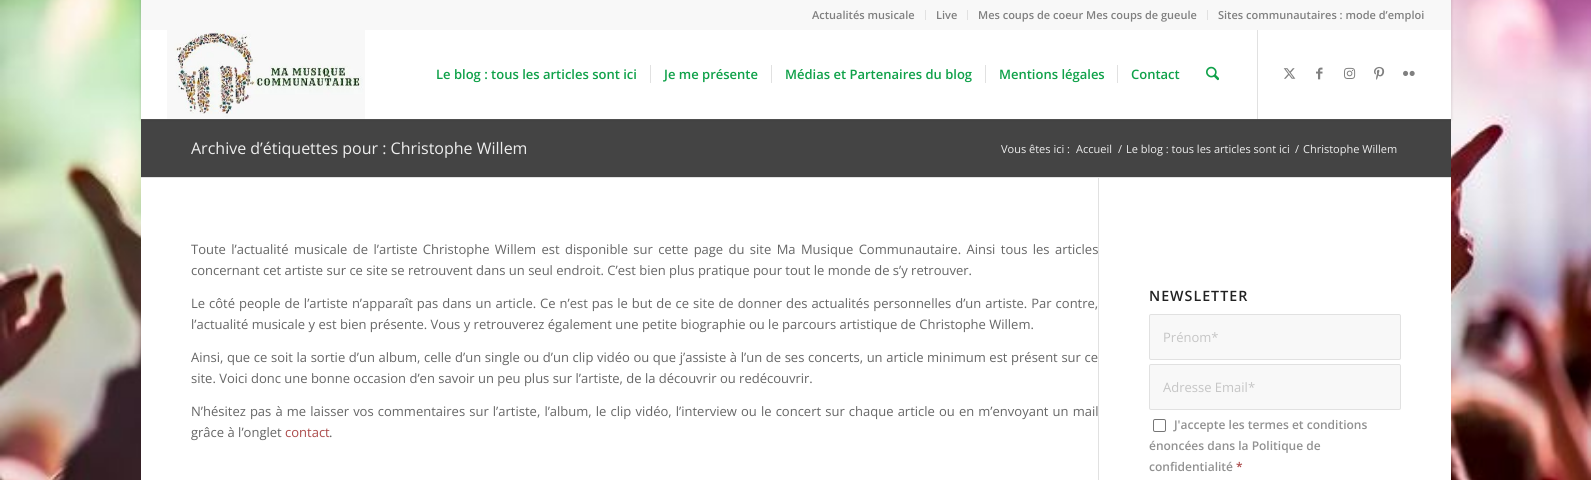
#include <cairo.h>
#include <math.h>
#include <stddef.h>

typedef struct { const char *family; double size; int italic, bold; unsigned color; } style_t;
static cairo_t *ctx;

static void ink(unsigned color) {
    cairo_set_source_rgb(ctx, (color >> 16) / 255.0, (color >> 8 & 255) / 255.0, (color & 255) / 255.0);
}

static void write(double x, double y, const char *s, const style_t *st) {
    cairo_select_font_face(ctx, st->family, st->italic ? CAIRO_FONT_SLANT_ITALIC : CAIRO_FONT_SLANT_NORMAL,
        st->bold ? CAIRO_FONT_WEIGHT_BOLD : CAIRO_FONT_WEIGHT_NORMAL);
    cairo_set_font_size(ctx, st->size);
    ink(st->color);
    cairo_move_to(ctx, x, y);
    cairo_show_text(ctx, s);
}

static void write_spaced(double x, double y, const char *s, double letter, double word) {
    cairo_move_to(ctx, x, y);
    while (*s) {
        char ch[5] = {0};
        int n = 0;
        do ch[n++] = *s++; while ((*s & 0xC0) == 0x80);
        cairo_show_text(ctx, ch);
        cairo_rel_move_to(ctx, letter + word * (*ch == ' '), 0);
    }
}

static void block(double x, double y, double w, double h, unsigned color) {
    ink(color);
    cairo_rectangle(ctx, x, y, w, h);
    cairo_fill(ctx);
}

static void round_path(double x, double y, double w, double h, double r) {
    cairo_new_sub_path(ctx);
    cairo_arc(ctx, x + w - r, y + h - r, r, 0, M_PI / 2);
    cairo_arc(ctx, x + r, y + h - r, r, M_PI / 2, M_PI);
    cairo_arc(ctx, x + r, y + r, r, M_PI, 1.5 * M_PI);
    cairo_arc(ctx, x + w - r, y + r, r, 1.5 * M_PI, 2 * M_PI);
    cairo_close_path(ctx);
}

static void blur_box(double x, double y, double w, double h, double r, double blur, double alpha) {
    cairo_push_group_with_content(ctx, CAIRO_CONTENT_ALPHA);
    cairo_set_operator(ctx, CAIRO_OPERATOR_SOURCE);
    for (int i = 15; i >= -15 && fmin(w, h) + blur * i / 3 > 0; i -= 2) {
        double e = blur * i / 6;
        cairo_set_source_rgba(ctx, 0, 0, 0, alpha * erfc((i - 1) / 8.5) / 2);
        round_path(x - e, y - e, w + 2 * e, h + 2 * e, fmax(0, fmin(r + e + blur * .6, fmin(w, h) / 2 + e)));
        cairo_fill(ctx);
    }
    cairo_pattern_t *soft = cairo_pop_group(ctx);
    cairo_mask(ctx, soft);
    cairo_pattern_destroy(soft);
}

static void paste(const char *path, double x, double y, double w, double h) {
    cairo_surface_t *image = cairo_image_surface_create_from_png(path);
    cairo_save(ctx);
    cairo_set_source_surface(ctx, image, x, y);
    cairo_rectangle(ctx, x, y, w, h);
    cairo_fill(ctx);
    cairo_restore(ctx);
    cairo_surface_destroy(image);
}

static const style_t s1 = {"Open Sans SemiBold", 11, 0, 0, 0x808080};
static const style_t s2 = {"Open Sans SemiBold", 13, 0, 0, 0x0fa149};
static const style_t s3 = {"Open Sans", 16, 0, 0, 0xeeeeee};
static const style_t s4 = {"Open Sans", 11, 0, 0, 0xeeeeee};
static const style_t s5 = {"Open Sans", 13, 0, 0, 0x666666};
static const style_t s6 = {"Open Sans", 13, 0, 0, 0xab4b4b};
static const style_t s7 = {"Open Sans", 13, 0, 0, 0xc5c5c5};
static const style_t s8 = {"Open Sans SemiBold", 12, 0, 0, 0x919191};
static const style_t s9 = {"Open Sans SemiBold", 12, 0, 0, 0xab4b4b};

int main(void) {
    cairo_surface_t *surface = cairo_image_surface_create(CAIRO_FORMAT_RGB24, 1591, 480);
    ctx = cairo_create(surface);
    cairo_font_options_t *options = cairo_font_options_create();
    cairo_font_options_set_hint_metrics(options, CAIRO_HINT_METRICS_OFF);
    cairo_font_options_set_hint_style(options, CAIRO_HINT_STYLE_NONE);
    cairo_set_font_options(ctx, options);
    cairo_set_miter_limit(ctx, 4);
    ink(0xffffff);
    cairo_paint(ctx);
    paste("pic1.png", 0, 0, 1591, 480);
    block(141, 30, 1310, 450, 0xffffff);
    block(141, 120, 1310, 57, 0x444444);
    block(141, 119, 1310, 1, 0x555555);
    cairo_save(ctx);
    cairo_set_fill_rule(ctx, CAIRO_FILL_RULE_EVEN_ODD);
    cairo_new_path(ctx);
    cairo_move_to(ctx, 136, 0);
    cairo_line_to(ctx, 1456, 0);
    cairo_line_to(ctx, 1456, 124);
    cairo_line_to(ctx, 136, 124);
    cairo_close_path(ctx);
    cairo_move_to(ctx, 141, 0);
    cairo_line_to(ctx, 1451, 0);
    cairo_line_to(ctx, 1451, 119);
    cairo_line_to(ctx, 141, 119);
    cairo_close_path(ctx);
    cairo_clip(ctx);
    ink(0x000000);
    blur_box(140, -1, 1312, 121, 0, 1, 0.1);
    cairo_restore(ctx);
    block(1257, 29, 1, 90, 0xe1e1e1);
    block(141, 0, 1310, 30, 0xf8f8f8);
    block(925, 10, 1, 10, 0xe1e1e1);
    write(812, 19, "Actualités musicale", &s1);
    block(967, 10, 1, 10, 0xe1e1e1);
    write(936, 19, "Live", &s1);
    block(1207, 10, 1, 10, 0xe1e1e1);
    write(978, 19, "Mes coups de coeur Mes coups de gueule", &s1);
    write(1218, 19, "Sites communautaires : mode d’emploi", &s1);
    paste("pic2.png", 167, 30, 198, 89);
    write(436, 79, "Le blog : tous les articles sont ici", &s2);
    write(664, 79, "Je me présente", &s2);
    block(650, 65, 1, 18, 0xe1e1e1);
    write(785, 79, "Médias et Partenaires du blog", &s2);
    block(771, 65, 1, 18, 0xe1e1e1);
    write(999, 79, "Mentions légales", &s2);
    block(985, 65, 1, 18, 0xe1e1e1);
    write(1131, 79, "Contact", &s2);
    block(1117, 65, 1, 18, 0xe1e1e1);
    paste("pic3.png", 1206, 66, 13, 15);
    paste("pic4.png", 1283, 68, 13, 11);
    paste("pic5.png", 1316, 67, 7, 13);
    paste("pic6.png", 1344, 67, 12, 12);
    paste("pic7.png", 1374, 66, 11, 14);
    paste("pic8.png", 1403, 70, 12, 6);
    write(191, 154, "Archive d’étiquettes pour : Christophe Willem", &s3);
    write(1001, 153, "Vous êtes ici :", &s4);
    write(1076, 153, "Accueil", &s4);
    write(1118, 153, "/", &s4);
    write(1126, 153, "Le blog : tous les articles sont ici", &s4);
    write(1295, 153, "/", &s4);
    write(1303, 153, "Christophe Willem", &s4);
    block(141, 177, 1310, 1, 0xe1e1e1);
    block(1098, 178, 1, 302, 0xe1e1e1);
    cairo_set_font_size(ctx, 13);
    ink(0x666666);
    write_spaced(191, 254, "Toute l’actualité musicale de l’artiste Christophe Willem est disponible sur cette page du site Ma Musique Communautaire. Ainsi tous les articles", 0, 2);
    write(191, 275, "concernant cet artiste sur ce site se retrouvent dans un seul endroit. C’est bien plus pratique pour tout le monde de s’y retrouver.", &s5);
    write_spaced(191, 308, "Le côté people de l’artiste n’apparaît pas dans un article. Ce n’est pas le but de ce site de donner des actualités personnelles d’un artiste. Par contre,", 0, 0.6);
    write(191, 329, "l’actualité musicale y est bien présente. Vous y retrouverez également une petite biographie ou le parcours artistique de Christophe Willem.", &s5);
    write_spaced(191, 362, "Ainsi, que ce soit la sortie d’un album, celle d’un single ou d’un clip vidéo ou que j’assiste à l’un de ses concerts, un article minimum est présent sur ce", 0, 0.25);
    write(191, 383, "site. Voici donc une bonne occasion d’en savoir un peu plus sur l’artiste, de la découvrir ou redécouvrir.", &s5);
    write_spaced(191, 416, "N’hésitez pas à me laisser vos commentaires sur l’artiste, l’album, le clip vidéo, l’interview ou le concert sur chaque article ou en m’envoyant un mail", 0, 0.75);
    write(191, 437, "grâce à l’onglet", &s5);
    write(285, 437, "contact", &s6);
    write(329, 437, ".", &s5);
    cairo_select_font_face(ctx, "Open Sans SemiBold", CAIRO_FONT_SLANT_NORMAL, CAIRO_FONT_WEIGHT_NORMAL);
    cairo_set_font_size(ctx, 14.25);
    ink(0x222222);
    write_spaced(1149, 301, "NEWSLETTER", 1, 0);
    ink(0xf8f8f8);
    round_path(1149.5, 314.5, 251, 45, 1.5);
    cairo_fill_preserve(ctx);
    ink(0xe1e1e1);
    cairo_set_line_width(ctx, 1);
    cairo_stroke(ctx);
    write(1163, 342, "Prénom*", &s7);
    ink(0xf8f8f8);
    round_path(1149.5, 364.5, 251, 45, 1.5);
    cairo_fill_preserve(ctx);
    ink(0xe1e1e1);
    cairo_stroke(ctx);
    write(1163, 392, "Adresse Email*", &s7);
    write(1174, 429, "J'accepte les termes et conditions", &s8);
    write(1149, 450, "énoncées dans la Politique de", &s8);
    write(1149, 471, "confidentialité", &s8);
    write(1236, 471, "*", &s9);
    round_path(1153.5, 419.5, 12, 12, 1.5);
    ink(0x767676);
    cairo_stroke(ctx);
    cairo_surface_write_to_png(surface, "screenshot.png");
    cairo_font_options_destroy(options);
    cairo_destroy(ctx);
    cairo_surface_destroy(surface);
    return 0;
}
